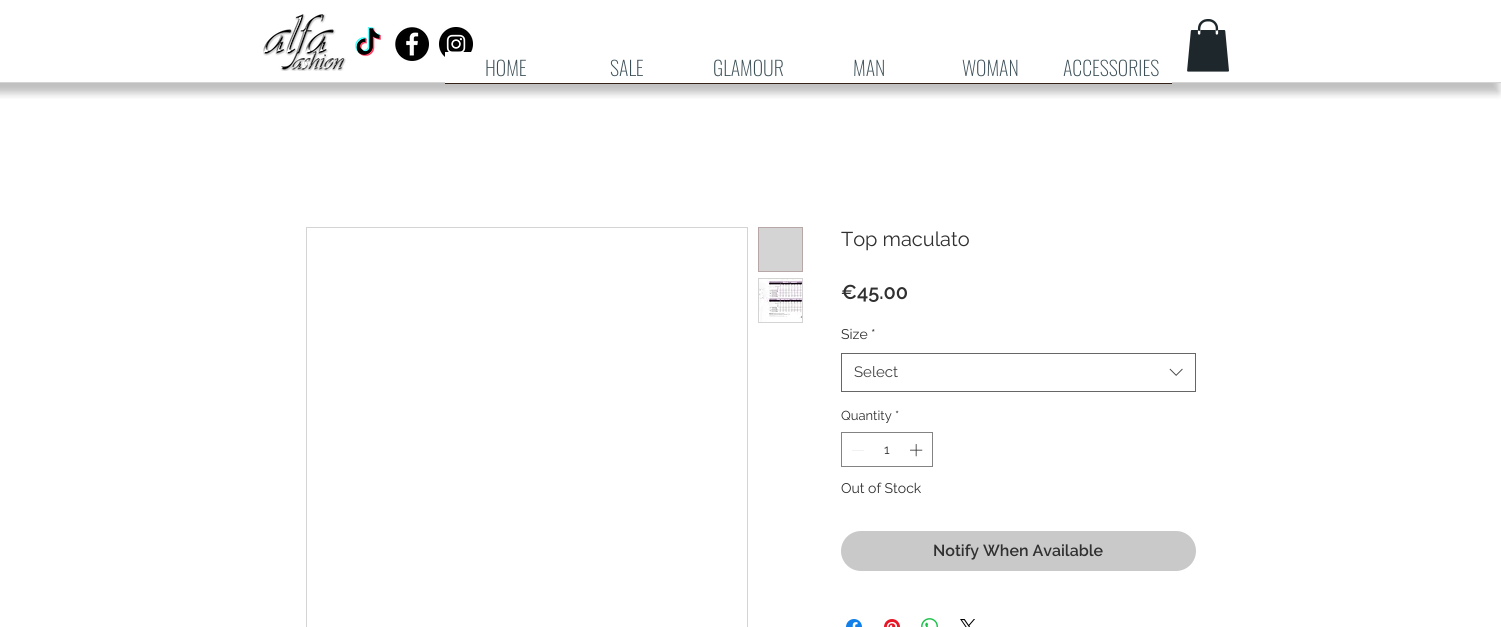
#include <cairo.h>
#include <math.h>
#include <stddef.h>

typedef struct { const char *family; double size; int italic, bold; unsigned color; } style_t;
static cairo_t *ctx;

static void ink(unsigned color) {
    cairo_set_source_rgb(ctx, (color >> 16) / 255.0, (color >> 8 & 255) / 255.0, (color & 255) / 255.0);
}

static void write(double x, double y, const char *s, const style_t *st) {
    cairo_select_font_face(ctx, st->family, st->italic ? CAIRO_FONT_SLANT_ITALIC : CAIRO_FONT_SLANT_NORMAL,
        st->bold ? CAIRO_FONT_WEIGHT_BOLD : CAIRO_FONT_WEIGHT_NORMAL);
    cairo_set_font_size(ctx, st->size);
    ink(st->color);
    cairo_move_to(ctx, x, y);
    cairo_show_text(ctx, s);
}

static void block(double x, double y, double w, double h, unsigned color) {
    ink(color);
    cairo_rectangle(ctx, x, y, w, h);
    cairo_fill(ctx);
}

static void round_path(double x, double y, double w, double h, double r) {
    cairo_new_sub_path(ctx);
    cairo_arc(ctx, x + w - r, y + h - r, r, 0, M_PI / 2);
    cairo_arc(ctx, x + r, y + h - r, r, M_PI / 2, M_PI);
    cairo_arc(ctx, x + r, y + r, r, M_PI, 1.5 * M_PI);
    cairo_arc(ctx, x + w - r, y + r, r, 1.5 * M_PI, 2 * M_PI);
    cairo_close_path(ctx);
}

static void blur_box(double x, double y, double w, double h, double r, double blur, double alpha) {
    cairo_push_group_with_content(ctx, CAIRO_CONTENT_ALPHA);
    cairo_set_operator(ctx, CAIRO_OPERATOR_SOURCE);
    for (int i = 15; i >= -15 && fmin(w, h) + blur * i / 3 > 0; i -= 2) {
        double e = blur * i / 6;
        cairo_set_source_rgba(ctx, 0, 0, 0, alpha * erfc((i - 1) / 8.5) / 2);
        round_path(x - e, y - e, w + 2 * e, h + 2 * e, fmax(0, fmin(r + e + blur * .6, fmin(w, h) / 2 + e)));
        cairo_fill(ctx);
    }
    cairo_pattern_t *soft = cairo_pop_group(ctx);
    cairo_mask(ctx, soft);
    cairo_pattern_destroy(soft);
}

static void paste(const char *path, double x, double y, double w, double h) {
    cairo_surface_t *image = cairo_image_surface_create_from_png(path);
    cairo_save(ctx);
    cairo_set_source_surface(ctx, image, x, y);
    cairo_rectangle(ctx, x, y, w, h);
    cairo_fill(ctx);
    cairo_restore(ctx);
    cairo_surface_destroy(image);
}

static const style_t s1 = {"Oswald ExtraLight", 20, 0, 0, 0x3c4f57};
static const style_t s2 = {"Raleway", 20, 0, 0, 0x303030};
static const style_t s3 = {"Raleway SemiBold", 20, 0, 0, 0x303030};
static const style_t s4 = {"Raleway", 14, 0, 0, 0x303030};
static const style_t s5 = {"Raleway", 15, 0, 0, 0x444444};
static const style_t s6 = {"Raleway", 13, 0, 0, 0x303030};
static const style_t s7 = {"Raleway SemiBold", 16, 0, 0, 0x303030};

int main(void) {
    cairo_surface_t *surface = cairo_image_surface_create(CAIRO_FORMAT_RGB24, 1501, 627);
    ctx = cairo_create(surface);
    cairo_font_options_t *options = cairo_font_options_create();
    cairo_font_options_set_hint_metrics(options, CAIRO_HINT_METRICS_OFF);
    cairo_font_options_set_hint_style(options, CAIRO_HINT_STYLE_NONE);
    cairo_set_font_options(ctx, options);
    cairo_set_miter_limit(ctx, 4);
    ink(0xffffff);
    cairo_paint(ctx);
    cairo_save(ctx);
    cairo_rectangle(ctx, 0, 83, 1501, 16);
    cairo_clip(ctx);
    ink(0x000000);
    blur_box(-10, 2, 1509, 91, 0, 4, 0.25);
    cairo_restore(ctx);
    block(0, 82, 1501, 1, 0xd4d4d4);
    paste("pic1.png", 263, 14, 83, 57);
    paste("pic2.png", 355, 27, 26, 30);
    paste("pic3.png", 395, 27, 34, 34);
    paste("pic4.png", 439, 27, 34, 30);
    paste("pic5.png", 1187, 19, 42, 53);
    block(445, 52, 727, 31, 0xffffff);
    block(445, 83, 727, 1, 0x342216);
    write(485, 76, "HOME", &s1);
    write(610, 76, "SALE", &s1);
    write(713, 76, "GLAMOUR", &s1);
    write(853, 76, "MAN", &s1);
    write(962, 76, "WOMAN", &s1);
    write(1063, 76, "ACCESSORIES", &s1);
    cairo_rectangle(ctx, 306.5, 227.5, 441, 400);
    ink(0xd4d4d4);
    cairo_set_line_width(ctx, 1);
    cairo_stroke(ctx);
    cairo_rectangle(ctx, 758.5, 227.5, 44, 44);
    cairo_fill_preserve(ctx);
    ink(0xb7a7a7);
    cairo_stroke(ctx);
    block(758, 278, 45, 45, 0xd4d4d4);
    paste("pic6.png", 759, 279, 43, 43);
    write(841, 246, "Top maculato", &s2);
    write(841, 299, "€45.00", &s3);
    write(841, 339, "Size", &s4);
    write(871, 339, "*", &s4);
    cairo_rectangle(ctx, 841.5, 353.5, 354, 38);
    ink(0x666666);
    cairo_stroke(ctx);
    write(854, 377, "Select", &s5);
    paste("pic7.png", 1169, 368, 14, 8);
    write(841, 420, "Quantity", &s6);
    write(895, 420, "*", &s6);
    cairo_rectangle(ctx, 841.5, 432.5, 91, 34);
    ink(0x838383);
    cairo_stroke(ctx);
    ink(0xe3e3e3);
    cairo_set_fill_rule(ctx, CAIRO_FILL_RULE_EVEN_ODD);
    cairo_new_path(ctx);
    cairo_move_to(ctx, 864, 450);
    cairo_line_to(ctx, 864, 450.5);
    cairo_line_to(ctx, 852, 450.5);
    cairo_line_to(ctx, 852, 450);
    cairo_close_path(ctx);
    cairo_fill(ctx);
    write(884, 454, "1", &s6);
    paste("pic8.png", 910, 444, 13, 13);
    write(841, 493, "Out of Stock", &s4);
    ink(0xc9c9c9);
    round_path(841, 531, 355, 40, 20);
    cairo_fill(ctx);
    write(933, 556, "Notify When Available", &s7);
    paste("pic9.png", 846, 619, 16, 8);
    paste("pic10.png", 884, 619, 16, 8);
    paste("pic11.png", 921, 618, 17, 9);
    paste("pic12.png", 960, 619, 15, 8);
    cairo_surface_write_to_png(surface, "screenshot.png");
    cairo_font_options_destroy(options);
    cairo_destroy(ctx);
    cairo_surface_destroy(surface);
    return 0;
}
